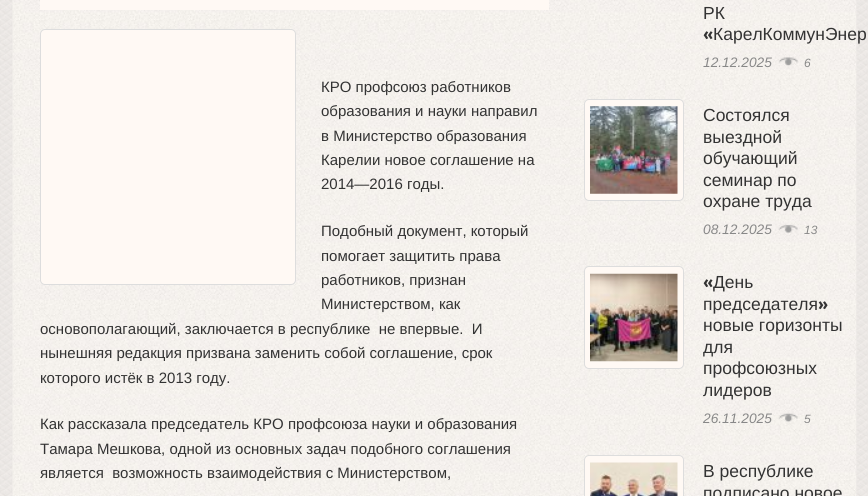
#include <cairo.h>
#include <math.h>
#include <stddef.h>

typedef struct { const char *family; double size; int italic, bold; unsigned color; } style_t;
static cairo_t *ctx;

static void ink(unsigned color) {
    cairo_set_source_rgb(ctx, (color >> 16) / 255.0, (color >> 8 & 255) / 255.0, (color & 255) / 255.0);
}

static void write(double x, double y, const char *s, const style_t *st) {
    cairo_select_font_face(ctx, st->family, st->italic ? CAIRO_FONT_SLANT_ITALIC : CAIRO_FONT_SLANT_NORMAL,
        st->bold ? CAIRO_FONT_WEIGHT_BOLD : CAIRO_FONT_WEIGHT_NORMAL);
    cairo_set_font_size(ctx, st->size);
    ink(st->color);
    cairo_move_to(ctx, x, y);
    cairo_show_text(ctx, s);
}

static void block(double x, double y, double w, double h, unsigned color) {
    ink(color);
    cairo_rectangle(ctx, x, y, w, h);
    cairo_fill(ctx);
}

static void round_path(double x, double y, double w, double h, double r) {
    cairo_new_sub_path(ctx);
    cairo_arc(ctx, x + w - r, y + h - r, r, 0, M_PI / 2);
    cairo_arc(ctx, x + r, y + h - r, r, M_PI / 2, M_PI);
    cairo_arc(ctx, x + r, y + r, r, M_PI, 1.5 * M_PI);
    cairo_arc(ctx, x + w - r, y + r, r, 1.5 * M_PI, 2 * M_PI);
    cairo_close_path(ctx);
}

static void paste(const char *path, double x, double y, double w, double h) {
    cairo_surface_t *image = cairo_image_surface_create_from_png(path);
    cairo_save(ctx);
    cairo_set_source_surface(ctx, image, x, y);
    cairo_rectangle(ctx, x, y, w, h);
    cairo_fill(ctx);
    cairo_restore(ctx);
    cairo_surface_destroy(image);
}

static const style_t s1 = {"Liberation Sans", 15, 0, 0, 0x333333};
static const style_t s2 = {"Liberation Sans", 17.5, 0, 0, 0x333333};
static const style_t s3 = {"Droid Sans", 17.5, 0, 1, 0x333333};
static const style_t s4 = {"Liberation Sans", 13.75, 1, 0, 0x888888};
static const style_t s5 = {"Liberation Sans", 12, 1, 0, 0x888888};

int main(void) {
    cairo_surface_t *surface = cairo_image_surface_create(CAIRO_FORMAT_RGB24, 868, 496);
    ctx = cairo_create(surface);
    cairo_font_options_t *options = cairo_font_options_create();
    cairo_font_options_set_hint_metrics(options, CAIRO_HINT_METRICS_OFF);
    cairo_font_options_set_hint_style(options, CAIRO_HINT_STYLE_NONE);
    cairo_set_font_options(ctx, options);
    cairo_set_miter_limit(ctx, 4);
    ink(0xffffff);
    cairo_paint(ctx);
    paste("pic1.png", 0, 0, 868, 496);
    paste("pic2.png", 12, 0, 845, 496);
    block(40, 0, 509, 10, 0xfff9f4);
    round_path(40.5, 29.5, 255, 255, 4.5);
    cairo_fill_preserve(ctx);
    ink(0xdddddd);
    cairo_set_line_width(ctx, 1);
    cairo_stroke(ctx);
    write(321, 92, "КРО профсоюз работников", &s1);
    write(321, 116, "образования и науки направил", &s1);
    write(321, 141, "в Министерство образования", &s1);
    write(321, 165, "Карелии новое соглашение на", &s1);
    write(321, 189, "2014—2016 годы.", &s1);
    write(321, 236, "Подобный документ, который", &s1);
    write(321, 261, "помогает защитить права", &s1);
    write(321, 285, "работников, признан", &s1);
    write(321, 309, "Министерством, как", &s1);
    write(40, 334, "основополагающий, заключается в республике  не впервые.  И", &s1);
    write(40, 358, "нынешняя редакция призвана заменить собой соглашение, срок", &s1);
    write(40, 383, "которого истёк в 2013 году.", &s1);
    write(40, 429, "Как рассказала председатель КРО профсоюза науки и образования", &s1);
    write(40, 454, "Тамара Мешкова, одной из основных задач подобного соглашения", &s1);
    write(40, 478, "является  возможность взаимодействия с Министерством,", &s1);
    write(703, 19, "РК", &s2);
    write(703, 40, "«", &s3);
    write(713, 40, "КарелКоммунЭнер", &s2);
    write(703, 67, "12.12.2025", &s4);
    paste("pic3.png", 778, 57, 20, 9);
    write(804, 67, "6", &s5);
    ink(0xfff9f4);
    round_path(584.5, 99.5, 99, 101, 4.5);
    cairo_fill_preserve(ctx);
    ink(0xdddddd);
    cairo_stroke(ctx);
    paste("pic4.png", 590, 106, 88, 88);
    write(703, 121, "Состоялся", &s2);
    write(703, 143, "выездной", &s2);
    write(703, 164, "обучающий", &s2);
    write(703, 186, "семинар по", &s2);
    write(703, 207, "охране труда", &s2);
    write(703, 234, "08.12.2025", &s4);
    paste("pic5.png", 778, 224, 20, 10);
    write(804, 234, "13", &s5);
    ink(0xfff9f4);
    round_path(584.5, 266.5, 99, 102, 4.5);
    cairo_fill_preserve(ctx);
    ink(0xdddddd);
    cairo_stroke(ctx);
    paste("pic6.png", 590, 273, 88, 89);
    write(703, 288, "«", &s3);
    write(713, 288, "День", &s2);
    write(703, 310, "председателя", &s2);
    write(818, 310, "»", &s3);
    write(703, 331, "новые горизонты", &s2);
    write(703, 353, "для", &s2);
    write(703, 374, "профсоюзных", &s2);
    write(703, 396, "лидеров", &s2);
    write(703, 423, "26.11.2025", &s4);
    paste("pic7.png", 778, 413, 20, 10);
    write(804, 423, "5", &s5);
    ink(0xfff9f4);
    round_path(584.5, 455.5, 99, 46, 4.5);
    cairo_fill_preserve(ctx);
    ink(0xdddddd);
    cairo_stroke(ctx);
    paste("pic8.png", 590, 462, 88, 34);
    write(703, 477, "В республике", &s2);
    write(703, 499, "подписано новое", &s2);
    cairo_surface_write_to_png(surface, "screenshot.png");
    cairo_font_options_destroy(options);
    cairo_destroy(ctx);
    cairo_surface_destroy(surface);
    return 0;
}
